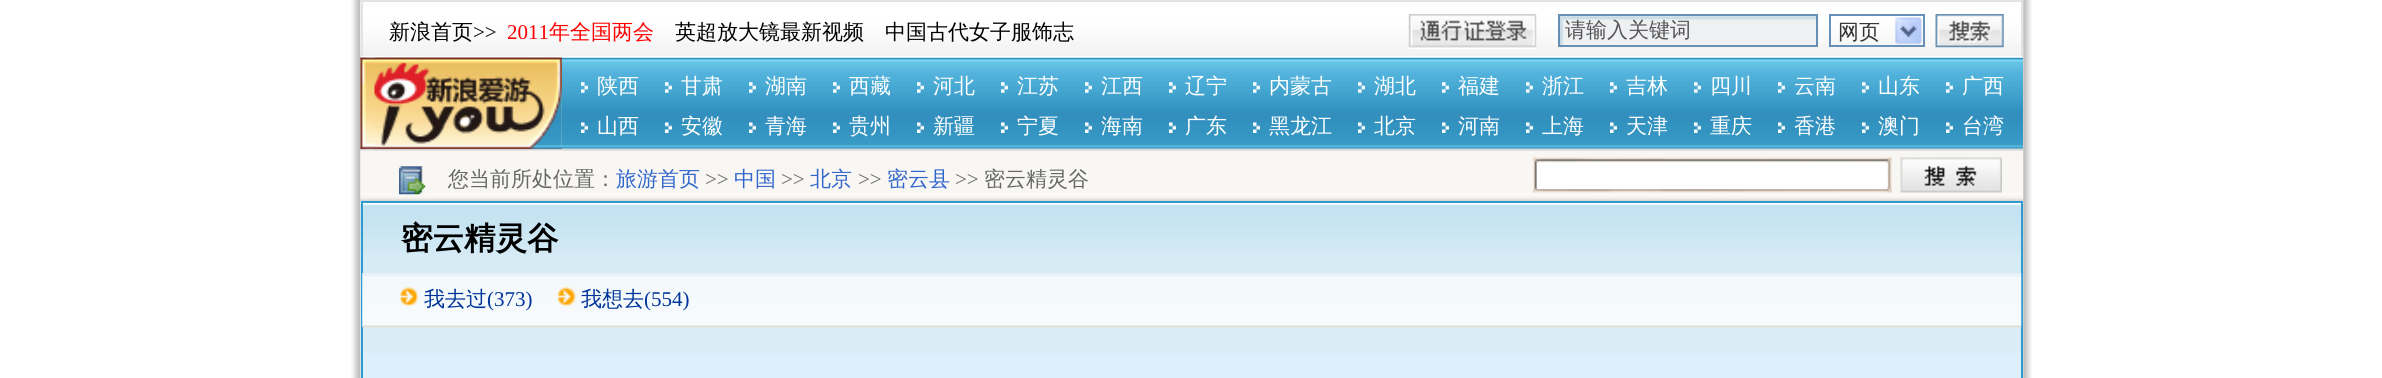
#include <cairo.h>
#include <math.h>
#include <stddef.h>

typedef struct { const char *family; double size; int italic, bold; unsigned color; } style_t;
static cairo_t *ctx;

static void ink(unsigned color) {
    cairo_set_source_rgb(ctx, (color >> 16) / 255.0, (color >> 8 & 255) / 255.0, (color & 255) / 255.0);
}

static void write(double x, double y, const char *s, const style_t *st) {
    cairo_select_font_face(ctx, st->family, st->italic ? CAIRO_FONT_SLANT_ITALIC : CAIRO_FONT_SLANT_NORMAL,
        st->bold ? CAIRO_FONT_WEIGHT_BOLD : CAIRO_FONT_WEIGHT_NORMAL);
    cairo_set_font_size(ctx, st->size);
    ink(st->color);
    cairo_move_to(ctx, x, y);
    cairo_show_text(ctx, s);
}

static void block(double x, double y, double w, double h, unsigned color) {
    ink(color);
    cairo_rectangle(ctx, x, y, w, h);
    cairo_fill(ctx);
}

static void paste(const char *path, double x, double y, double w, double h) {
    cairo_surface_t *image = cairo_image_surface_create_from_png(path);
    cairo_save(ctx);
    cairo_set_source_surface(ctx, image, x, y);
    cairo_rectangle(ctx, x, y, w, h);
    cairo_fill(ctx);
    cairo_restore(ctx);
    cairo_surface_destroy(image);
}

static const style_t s1 = {"WenQuanYi Zen Hei Medium", 21, 0, 0, 0x000000};
static const style_t s2 = {"Liberation Serif", 21, 0, 0, 0x000000};
static const style_t s3 = {"Liberation Serif", 21, 0, 0, 0xff0000};
static const style_t s4 = {"WenQuanYi Zen Hei Medium", 21, 0, 0, 0xff0000};
static const style_t s5 = {"WenQuanYi Zen Hei Medium", 21, 0, 0, 0x555555};
static const style_t s6 = {"WenQuanYi Zen Hei Medium", 21, 0, 0, 0x333333};
static const style_t s7 = {"WenQuanYi Zen Hei Medium", 21, 0, 0, 0xffffff};
static const style_t s8 = {"WenQuanYi Zen Hei Medium", 21, 0, 0, 0x666666};
static const style_t s9 = {"WenQuanYi Zen Hei Medium", 21, 0, 0, 0x3266cb};
static const style_t s10 = {"Liberation Serif", 21, 0, 0, 0x666666};
static const style_t s11 = {"WenQuanYi Zen Hei", 31.5, 0, 1, 0x000000};
static const style_t s12 = {"WenQuanYi Zen Hei Medium", 21, 0, 0, 0x003499};
static const style_t s13 = {"Liberation Serif", 21, 0, 0, 0x003499};

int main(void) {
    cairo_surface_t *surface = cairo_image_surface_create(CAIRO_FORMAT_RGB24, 2382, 378);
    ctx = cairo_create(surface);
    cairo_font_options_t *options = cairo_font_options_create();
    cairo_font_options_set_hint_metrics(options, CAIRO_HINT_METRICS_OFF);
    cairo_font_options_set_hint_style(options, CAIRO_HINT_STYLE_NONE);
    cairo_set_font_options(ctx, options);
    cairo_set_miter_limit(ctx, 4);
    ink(0xffffff);
    cairo_paint(ctx);
    paste("pic1.png", 351, 0, 1681, 378);
    paste("pic2.png", 360, 1, 1661, 55);
    block(361, 0, 1662, 2, 0xe3e3e3);
    block(2021, 0, 2, 56, 0xe3e3e3);
    block(361, 0, 2, 56, 0xe3e3e3);
    write(389, 39, "新浪首页", &s1);
    write(473, 39, ">>", &s2);
    write(507, 39, "2011", &s3);
    write(549, 39, "年全国两会", &s4);
    write(675, 39, "英超放大镜最新视频", &s1);
    write(885, 39, "中国古代女子服饰志", &s1);
    paste("pic3.png", 1408, 14, 129, 35);
    paste("pic4.png", 1559, 15, 260, 33);
    cairo_rectangle(ctx, 1559, 15, 258, 31);
    ink(0x678fb3);
    cairo_stroke(ctx);
    write(1565, 37, "请输入关键词", &s5);
    paste("pic5.png", 1894, 17, 28, 28);
    cairo_rectangle(ctx, 1830, 15, 94, 31);
    ink(0x6690b6);
    cairo_stroke(ctx);
    write(1838, 39, "网页", &s6);
    paste("pic6.png", 1935, 14, 69, 34);
    paste("pic7.png", 360, 57, 1663, 92);
    paste("pic15.png", 360, 148, 1663, 54);
    paste("pic8.png", 360, 57, 202, 92);
    paste("pic9.png", 360, 57, 6, 92);
    paste("pic10.png", 374, 57, 188, 92);
    paste("pic11.png", 581, 82, 7, 11);
    write(597, 93, "陕西", &s7);
    paste("pic12.png", 665, 82, 7, 11);
    write(681, 93, "甘肃", &s7);
    paste("pic11.png", 749, 82, 7, 11);
    write(765, 93, "湖南", &s7);
    paste("pic11.png", 833, 82, 7, 11);
    write(849, 93, "西藏", &s7);
    paste("pic11.png", 917, 82, 7, 11);
    write(933, 93, "河北", &s7);
    paste("pic11.png", 1001, 82, 7, 11);
    write(1017, 93, "江苏", &s7);
    paste("pic11.png", 1085, 82, 7, 11);
    write(1101, 93, "江西", &s7);
    paste("pic11.png", 1169, 82, 7, 11);
    write(1185, 93, "辽宁", &s7);
    paste("pic12.png", 1253, 82, 7, 11);
    write(1269, 93, "内蒙古", &s7);
    paste("pic11.png", 1358, 82, 7, 11);
    write(1374, 93, "湖北", &s7);
    paste("pic11.png", 1442, 82, 7, 11);
    write(1458, 93, "福建", &s7);
    paste("pic12.png", 1526, 82, 7, 11);
    write(1542, 93, "浙江", &s7);
    paste("pic11.png", 1610, 82, 7, 11);
    write(1626, 93, "吉林", &s7);
    paste("pic11.png", 1694, 82, 7, 11);
    write(1710, 93, "四川", &s7);
    paste("pic12.png", 1778, 82, 7, 11);
    write(1794, 93, "云南", &s7);
    paste("pic11.png", 1862, 82, 7, 11);
    write(1878, 93, "山东", &s7);
    paste("pic11.png", 1946, 82, 7, 11);
    write(1962, 93, "广西", &s7);
    paste("pic13.png", 581, 122, 7, 11);
    write(597, 133, "山西", &s7);
    paste("pic14.png", 665, 122, 7, 11);
    write(681, 133, "安徽", &s7);
    paste("pic13.png", 749, 122, 7, 11);
    write(765, 133, "青海", &s7);
    paste("pic13.png", 833, 122, 7, 11);
    write(849, 133, "贵州", &s7);
    paste("pic13.png", 917, 122, 7, 11);
    write(933, 133, "新疆", &s7);
    paste("pic13.png", 1001, 122, 7, 11);
    write(1017, 133, "宁夏", &s7);
    paste("pic13.png", 1085, 122, 7, 11);
    write(1101, 133, "海南", &s7);
    paste("pic13.png", 1169, 122, 7, 11);
    write(1185, 133, "广东", &s7);
    paste("pic14.png", 1253, 122, 7, 11);
    write(1269, 133, "黑龙江", &s7);
    paste("pic13.png", 1358, 122, 7, 11);
    write(1374, 133, "北京", &s7);
    paste("pic13.png", 1442, 122, 7, 11);
    write(1458, 133, "河南", &s7);
    paste("pic14.png", 1526, 122, 7, 11);
    write(1542, 133, "上海", &s7);
    paste("pic13.png", 1610, 122, 7, 11);
    write(1626, 133, "天津", &s7);
    paste("pic13.png", 1694, 122, 7, 11);
    write(1710, 133, "重庆", &s7);
    paste("pic14.png", 1778, 122, 7, 11);
    write(1794, 133, "香港", &s7);
    paste("pic13.png", 1862, 122, 7, 11);
    write(1878, 133, "澳门", &s7);
    paste("pic13.png", 1946, 122, 7, 11);
    write(1962, 133, "台湾", &s7);
    paste("pic16.png", 399, 166, 27, 29);
    write(448, 186, "您当前所处位置：", &s8);
    write(616, 186, "旅游首页", &s9);
    write(705, 186, ">>", &s10);
    write(734, 186, "中国", &s9);
    write(781, 186, ">>", &s10);
    write(810, 186, "北京", &s9);
    write(858, 186, ">>", &s10);
    write(887, 186, "密云县", &s9);
    write(955, 186, ">>", &s10);
    write(984, 186, "密云精灵谷", &s8);
    paste("pic17.png", 1533, 157, 359, 36);
    block(1537, 163, 350, 26, 0xffffff);
    paste("pic18.png", 1900, 157, 102, 36);
    block(363, 353, 1658, 25, 0xddeffb);
    paste("pic19.png", 360, 203, 1661, 151);
    cairo_rectangle(ctx, 362, 202, 1660, 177);
    ink(0x2e9cd1);
    cairo_stroke(ctx);
    write(401, 249, "密云精灵谷", &s11);
    paste("pic20.png", 362, 273, 1660, 55);
    paste("pic21.png", 400, 287, 19, 20);
    write(424, 306, "我去过", &s12);
    write(487, 306, "(373)", &s13);
    paste("pic22.png", 558, 287, 18, 20);
    write(581, 306, "我想去", &s12);
    write(644, 306, "(554)", &s13);
    cairo_surface_write_to_png(surface, "screenshot.png");
    cairo_font_options_destroy(options);
    cairo_destroy(ctx);
    cairo_surface_destroy(surface);
    return 0;
}
